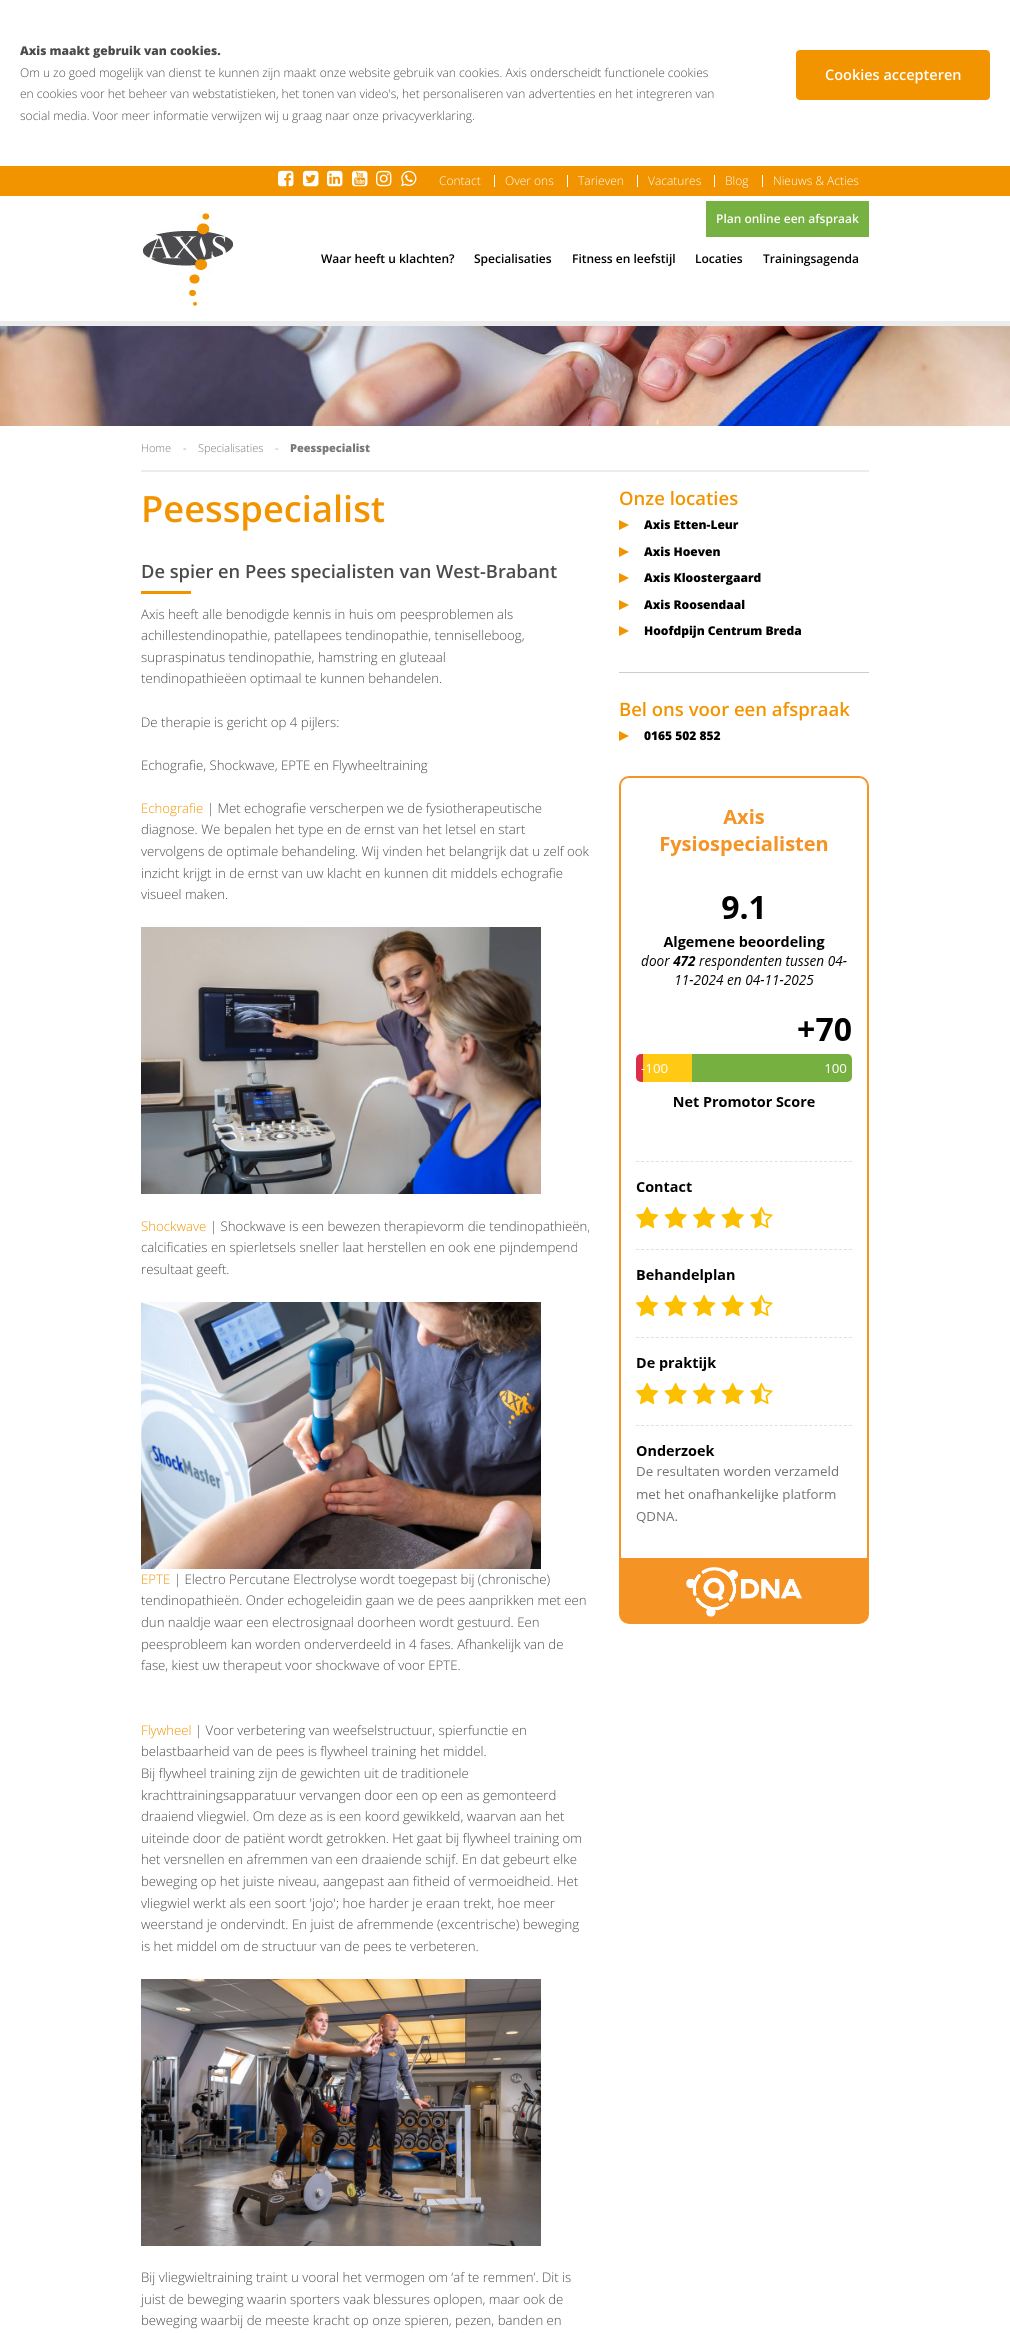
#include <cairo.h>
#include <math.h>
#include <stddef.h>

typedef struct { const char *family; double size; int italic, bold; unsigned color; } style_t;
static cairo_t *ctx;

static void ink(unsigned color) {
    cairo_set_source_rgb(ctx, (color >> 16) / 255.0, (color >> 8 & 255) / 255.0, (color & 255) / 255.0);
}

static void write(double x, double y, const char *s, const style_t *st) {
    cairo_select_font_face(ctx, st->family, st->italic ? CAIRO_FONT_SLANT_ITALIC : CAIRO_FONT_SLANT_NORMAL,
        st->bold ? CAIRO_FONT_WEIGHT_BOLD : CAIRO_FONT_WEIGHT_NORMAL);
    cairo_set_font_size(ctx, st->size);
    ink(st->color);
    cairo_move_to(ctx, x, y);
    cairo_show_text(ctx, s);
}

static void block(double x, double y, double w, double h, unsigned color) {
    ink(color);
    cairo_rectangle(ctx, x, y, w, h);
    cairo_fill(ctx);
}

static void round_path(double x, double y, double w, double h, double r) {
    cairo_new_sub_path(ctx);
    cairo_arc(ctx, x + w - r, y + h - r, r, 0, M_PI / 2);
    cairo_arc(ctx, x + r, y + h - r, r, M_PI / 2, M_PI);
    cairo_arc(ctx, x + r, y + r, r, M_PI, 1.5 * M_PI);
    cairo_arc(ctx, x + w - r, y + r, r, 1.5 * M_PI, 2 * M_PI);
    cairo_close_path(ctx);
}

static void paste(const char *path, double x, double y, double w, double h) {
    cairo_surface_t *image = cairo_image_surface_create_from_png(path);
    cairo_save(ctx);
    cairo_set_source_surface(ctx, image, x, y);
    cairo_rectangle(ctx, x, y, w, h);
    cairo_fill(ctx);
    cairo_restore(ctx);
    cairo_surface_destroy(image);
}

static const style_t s1 = {"Open Sans ExtraBold", 12, 0, 0, 0x4b4a4d};
static const style_t s2 = {"Open Sans Light", 12, 0, 0, 0x4b4a4d};
static const style_t s3 = {"Open Sans SemiBold", 14.5, 0, 0, 0xffffff};
static const style_t s4 = {"Open Sans Light", 12, 0, 0, 0xffffff};
static const style_t s5 = {"Open Sans SemiBold", 12, 0, 0, 0xffffff};
static const style_t s6 = {"Open Sans SemiBold", 12, 0, 0, 0x000000};
static const style_t s7 = {"Open Sans Light", 11, 0, 0, 0x787878};
static const style_t s8 = {"Open Sans ExtraBold", 11, 0, 0, 0x787878};
static const style_t s9 = {"Open Sans SemiBold", 36.25, 0, 0, 0xf29400};
static const style_t s10 = {"Open Sans SemiBold", 18.25, 0, 0, 0x4b4a4d};
static const style_t s11 = {"Open Sans Light", 13.2, 0, 0, 0x4b4a4d};
static const style_t s12 = {"Open Sans Light", 13.2, 0, 0, 0xf29400};
static const style_t s13 = {"Open Sans SemiBold", 18.5, 0, 0, 0xf29400};
static const style_t s14 = {"Open Sans ExtraBold", 12, 0, 0, 0x000000};

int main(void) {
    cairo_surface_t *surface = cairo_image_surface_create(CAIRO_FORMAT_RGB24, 1010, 2333);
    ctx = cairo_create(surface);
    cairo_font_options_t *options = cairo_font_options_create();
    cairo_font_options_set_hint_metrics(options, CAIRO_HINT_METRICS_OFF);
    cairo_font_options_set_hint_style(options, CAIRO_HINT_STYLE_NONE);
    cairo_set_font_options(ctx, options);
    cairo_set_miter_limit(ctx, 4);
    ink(0xffffff);
    cairo_paint(ctx);
    write(20, 55, "Axis maakt gebruik van cookies.", &s1);
    write(20, 77, "Om u zo goed mogelijk van dienst te kunnen zijn maakt onze website gebruik van cookies. Axis onderscheidt functionele cookies", &s2);
    write(20, 98, "en cookies voor het beheer van webstatistieken, het tonen van video's, het personaliseren van advertenties en het integreren van", &s2);
    write(20, 120, "social media. Voor meer informatie verwijzen wij u graag naar onze privacyverklaring.", &s2);
    ink(0xf29400);
    round_path(796, 50, 194, 50, 4);
    cairo_fill(ctx);
    write(825, 80, "Cookies accepteren", &s3);
    block(0, 321, 1010, 5, 0xececed);
    block(0, 166, 1010, 30, 0xf29400);
    paste("pic1.png", 278, 170, 16, 17);
    paste("pic2.png", 303, 170, 16, 17);
    paste("pic3.png", 327, 170, 16, 17);
    paste("pic4.png", 352, 170, 16, 17);
    paste("pic5.png", 376, 170, 16, 17);
    paste("pic6.png", 401, 170, 16, 17);
    write(439, 185, "Contact", &s4);
    block(494, 175, 1, 12, 0xffffff);
    write(505, 185, "Over ons", &s4);
    block(567, 175, 1, 12, 0xffffff);
    write(578, 185, "Tarieven", &s4);
    block(637, 175, 1, 12, 0xffffff);
    write(648, 185, "Vacatures", &s4);
    block(714, 175, 1, 12, 0xffffff);
    write(725, 185, "Blog", &s4);
    block(762, 175, 1, 12, 0xffffff);
    write(773, 185, "Nieuws & Acties", &s4);
    paste("pic7.png", 143, 211, 92, 96);
    block(706, 201, 163, 36, 0x76b141);
    write(716, 223, "Plan online een afspraak", &s5);
    write(321, 263, "Waar heeft u klachten?", &s6);
    write(474, 263, "Specialisaties", &s6);
    write(572, 263, "Fitness en leefstijl", &s6);
    write(695, 263, "Locaties", &s6);
    write(763, 263, "Trainingsagenda", &s6);
    paste("pic8.png", 0, 326, 1010, 100);
    block(141, 470, 728, 2, 0xececed);
    write(141, 452, "Home", &s7);
    write(183, 452, "-", &s7);
    write(198, 452, "Specialisaties", &s7);
    write(275, 452, "-", &s7);
    write(290, 452, "Peesspecialist", &s8);
    write(141, 522, "Peesspecialist", &s9);
    write(141, 578, "De spier en Pees specialisten van West-Brabant", &s10);
    block(141, 591, 50, 3, 0xf29400);
    write(141, 619, "Axis heeft alle benodigde kennis in huis om peesproblemen als", &s11);
    write(141, 640, "achillestendinopathie, patellapees tendinopathie, tenniselleboog,", &s11);
    write(141, 662, "supraspinatus tendinopathie, hamstring en gluteaal", &s11);
    write(141, 683, "tendinopathieëen optimaal te kunnen behandelen.", &s11);
    write(141, 727, "De therapie is gericht op 4 pijlers:", &s11);
    write(141, 770, "Echografie, Shockwave, EPTE en Flywheeltraining", &s11);
    write(141, 813, "Echografie", &s12);
    write(207, 813, "| Met echografie verscherpen we de fysiotherapeutische", &s11);
    write(141, 834, "diagnose. We bepalen het type en de ernst van het letsel en start", &s11);
    write(141, 856, "vervolgens de optimale behandeling. Wij vinden het belangrijk dat u zelf ook", &s11);
    write(141, 878, "inzicht krijgt in de ernst van uw klacht en kunnen dit middels echografie", &s11);
    write(141, 899, "visueel maken.", &s11);
    paste("pic9.png", 141, 927, 400, 267);
    write(141, 1231, "Shockwave", &s12);
    write(210, 1231, "| Shockwave is een bewezen therapievorm die tendinopathieën,", &s11);
    write(141, 1252, "calcificaties en spierletsels sneller laat herstellen en ook ene pijndempend", &s11);
    write(141, 1274, "resultaat geeft.", &s11);
    paste("pic10.png", 141, 1302, 400, 267);
    write(141, 1584, "EPTE", &s12);
    write(174, 1584, "| Electro Percutane Electrolyse wordt toegepast bij (chronische)", &s11);
    write(141, 1605, "tendinopathieën. Onder echogeleidin gaan we de pees aanprikken met een", &s11);
    write(141, 1627, "dun naaldje waar een electrosignaal doorheen wordt gestuurd. Een", &s11);
    write(141, 1649, "peesprobleem kan worden onderverdeeld in 4 fases. Afhankelijk van de", &s11);
    write(141, 1670, "fase, kiest uw therapeut voor shockwave of voor EPTE.", &s11);
    write(141, 1735, "Flywheel", &s12);
    write(195, 1735, "| Voor verbetering van weefselstructuur, spierfunctie en", &s11);
    write(141, 1756, "belastbaarheid van de pees is flywheel training het middel.", &s11);
    write(141, 1778, "Bij flywheel training zijn de gewichten uit de traditionele", &s11);
    write(141, 1800, "krachttrainingsapparatuur vervangen door een op een as gemonteerd", &s11);
    write(141, 1821, "draaiend vliegwiel. Om deze as is een koord gewikkeld, waarvan aan het", &s11);
    write(141, 1843, "uiteinde door de patiënt wordt getrokken. Het gaat bij flywheel training om", &s11);
    write(141, 1864, "het versnellen en afremmen van een draaiende schijf. En dat gebeurt elke", &s11);
    write(141, 1886, "beweging op het juiste niveau, aangepast aan fitheid of vermoeidheid. Het", &s11);
    write(141, 1908, "vliegwiel werkt als een soort 'jojo'; hoe harder je eraan trekt, hoe meer", &s11);
    write(141, 1929, "weerstand je ondervindt. En juist de afremmende (excentrische) beweging", &s11);
    write(141, 1951, "is het middel om de structuur van de pees te verbeteren.", &s11);
    paste("pic11.png", 141, 1979, 400, 267);
    write(141, 2282, "Bij vliegwieltraining traint u vooral het vermogen om ‘af te remmen’. Dit is", &s11);
    write(141, 2304, "juist de beweging waarin sporters vaak blessures oplopen, maar ook de", &s11);
    write(141, 2325, "beweging waarbij de meeste kracht op onze spieren, pezen, banden en", &s11);
    write(619, 505, "Onze locaties", &s13);
    cairo_new_path(ctx);
    cairo_move_to(ctx, 619, 530);
    cairo_line_to(ctx, 619, 520);
    cairo_line_to(ctx, 629, 525);
    cairo_close_path(ctx);
    cairo_fill(ctx);
    write(644, 529, "Axis Etten-Leur", &s14);
    ink(0xf29400);
    cairo_new_path(ctx);
    cairo_move_to(ctx, 619, 557);
    cairo_line_to(ctx, 619, 547);
    cairo_line_to(ctx, 629, 552);
    cairo_close_path(ctx);
    cairo_fill(ctx);
    write(644, 556, "Axis Hoeven", &s14);
    ink(0xf29400);
    cairo_new_path(ctx);
    cairo_move_to(ctx, 619, 583);
    cairo_line_to(ctx, 619, 573);
    cairo_line_to(ctx, 629, 578);
    cairo_close_path(ctx);
    cairo_fill(ctx);
    write(644, 582, "Axis Kloostergaard", &s14);
    ink(0xf29400);
    cairo_new_path(ctx);
    cairo_move_to(ctx, 619, 610);
    cairo_line_to(ctx, 619, 600);
    cairo_line_to(ctx, 629, 605);
    cairo_close_path(ctx);
    cairo_fill(ctx);
    write(644, 609, "Axis Roosendaal", &s14);
    ink(0xf29400);
    cairo_new_path(ctx);
    cairo_move_to(ctx, 619, 636);
    cairo_line_to(ctx, 619, 626);
    cairo_line_to(ctx, 629, 631);
    cairo_close_path(ctx);
    cairo_fill(ctx);
    write(644, 635, "Hoofdpijn Centrum Breda", &s14);
    block(619, 672, 250, 1, 0xcccccc);
    write(619, 716, "Bel ons voor een afspraak", &s13);
    cairo_new_path(ctx);
    cairo_move_to(ctx, 619, 741);
    cairo_line_to(ctx, 619, 731);
    cairo_line_to(ctx, 629, 736);
    cairo_close_path(ctx);
    cairo_fill(ctx);
    write(644, 740, "0165 502 852", &s14);
    paste("pic12.png", 619, 776, 250, 848);
    cairo_surface_write_to_png(surface, "screenshot.png");
    cairo_font_options_destroy(options);
    cairo_destroy(ctx);
    cairo_surface_destroy(surface);
    return 0;
}
